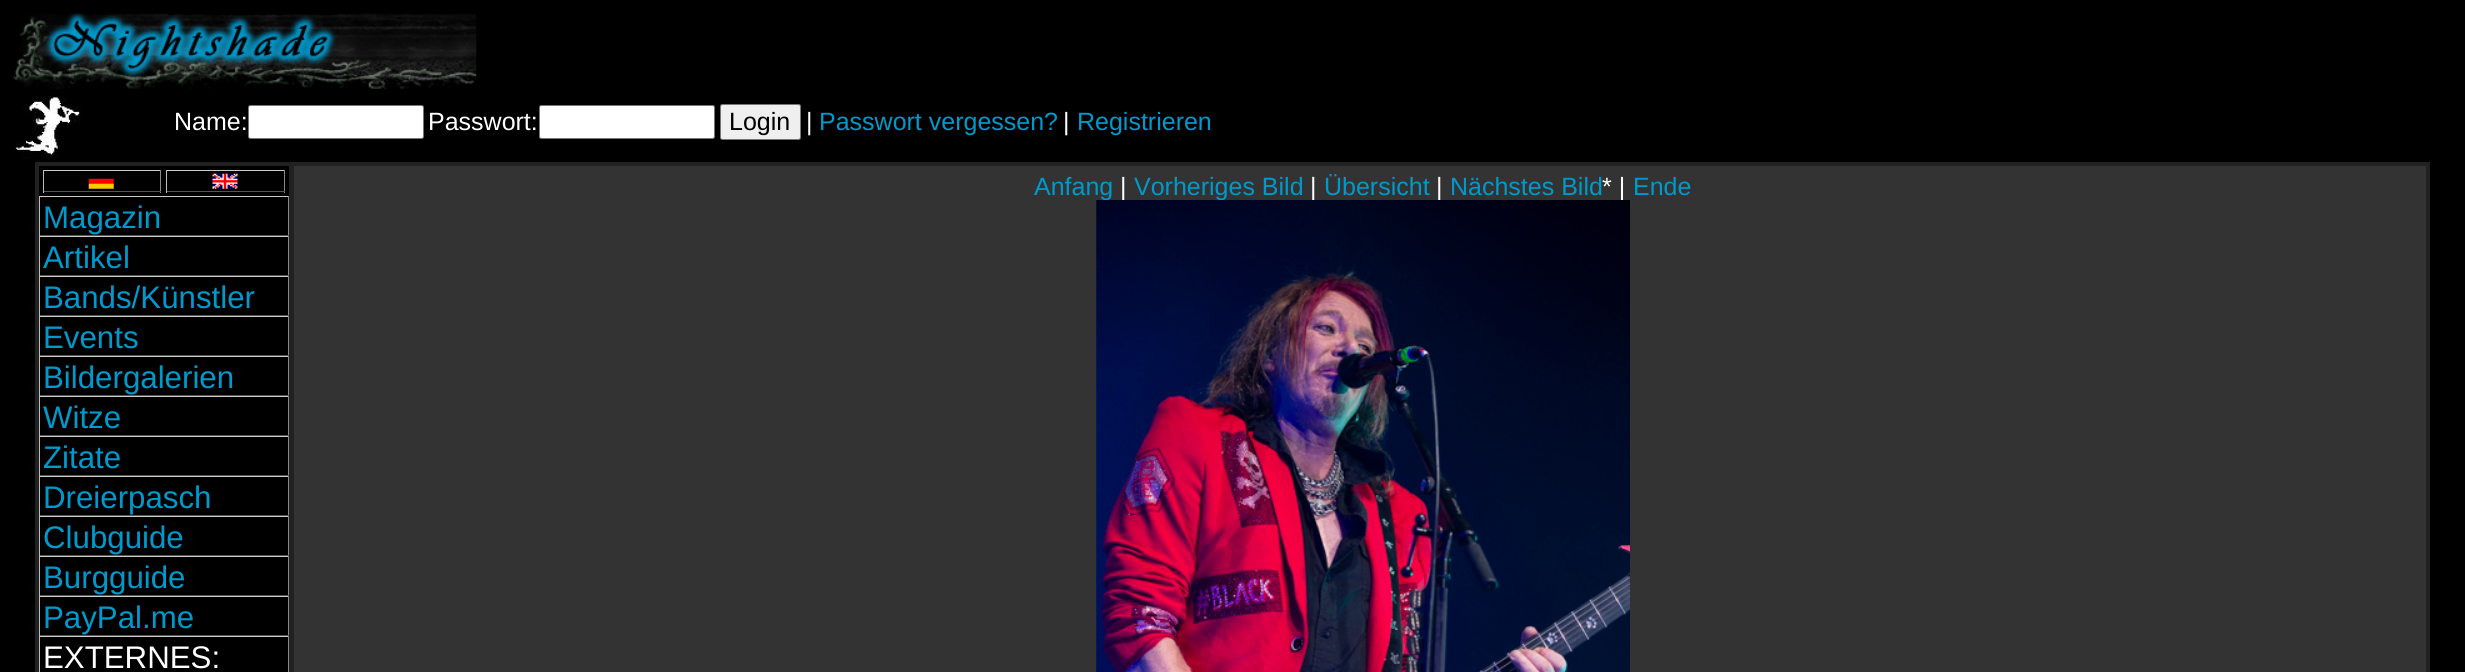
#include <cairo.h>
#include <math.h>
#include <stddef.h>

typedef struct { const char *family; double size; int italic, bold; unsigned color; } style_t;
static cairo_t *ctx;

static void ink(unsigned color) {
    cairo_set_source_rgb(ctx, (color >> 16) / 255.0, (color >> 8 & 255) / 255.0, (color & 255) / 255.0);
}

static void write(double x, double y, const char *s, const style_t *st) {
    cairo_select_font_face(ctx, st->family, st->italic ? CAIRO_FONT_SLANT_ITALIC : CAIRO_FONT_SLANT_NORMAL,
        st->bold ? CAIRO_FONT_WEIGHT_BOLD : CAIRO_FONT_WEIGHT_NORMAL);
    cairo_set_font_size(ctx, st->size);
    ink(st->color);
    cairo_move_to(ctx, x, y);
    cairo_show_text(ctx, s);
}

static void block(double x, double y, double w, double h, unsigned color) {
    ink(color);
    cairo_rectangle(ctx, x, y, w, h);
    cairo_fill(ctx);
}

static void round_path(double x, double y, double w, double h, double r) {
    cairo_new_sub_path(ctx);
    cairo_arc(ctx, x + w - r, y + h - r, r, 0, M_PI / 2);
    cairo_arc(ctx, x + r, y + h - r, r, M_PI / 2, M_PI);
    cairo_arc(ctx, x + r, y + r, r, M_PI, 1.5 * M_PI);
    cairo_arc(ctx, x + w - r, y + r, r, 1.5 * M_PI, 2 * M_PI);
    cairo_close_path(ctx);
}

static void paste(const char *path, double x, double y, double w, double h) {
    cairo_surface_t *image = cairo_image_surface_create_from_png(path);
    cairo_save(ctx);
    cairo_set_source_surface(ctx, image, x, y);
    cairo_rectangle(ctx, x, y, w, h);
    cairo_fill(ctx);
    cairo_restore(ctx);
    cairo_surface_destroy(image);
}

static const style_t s1 = {"Liberation Sans", 25, 0, 0, 0xffffff};
static const style_t s2 = {"Liberation Sans", 25, 0, 0, 0x000000};
static const style_t s3 = {"Liberation Sans", 25, 0, 0, 0x0099cc};
static const style_t s4 = {"Liberation Sans", 31.25, 0, 0, 0x0099cc};
static const style_t s5 = {"Liberation Sans", 31.25, 0, 0, 0xffffff};

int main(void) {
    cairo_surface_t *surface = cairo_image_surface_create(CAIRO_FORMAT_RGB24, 2465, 672);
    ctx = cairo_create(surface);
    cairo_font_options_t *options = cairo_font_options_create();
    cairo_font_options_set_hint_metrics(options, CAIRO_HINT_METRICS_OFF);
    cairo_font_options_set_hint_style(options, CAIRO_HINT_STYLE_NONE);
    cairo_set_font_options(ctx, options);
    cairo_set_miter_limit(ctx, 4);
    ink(0x000000);
    cairo_paint(ctx);
    paste("pic1.png", 13, 13, 464, 76);
    paste("pic2.png", 14, 96, 67, 63);
    write(174, 130, "Name:", &s1);
    round_path(248.5, 105.5, 175, 33, 2);
    cairo_fill_preserve(ctx);
    ink(0x767676);
    cairo_set_line_width(ctx, 1);
    cairo_stroke(ctx);
    write(428, 130, "Passwort:", &s1);
    round_path(539.5, 105.5, 175, 33, 2);
    cairo_fill_preserve(ctx);
    ink(0x767676);
    cairo_stroke(ctx);
    ink(0xefefef);
    round_path(720.5, 104.5, 80, 35, 2);
    cairo_fill_preserve(ctx);
    ink(0x767676);
    cairo_stroke(ctx);
    write(729, 130, "Login", &s2);
    write(806, 130, "|", &s1);
    write(819, 130, "Passwort vergessen?", &s3);
    write(1063, 130, "|", &s1);
    write(1077, 130, "Registrieren", &s3);
    block(35, 162, 2395, 510, 0x212121);
    block(294, 166, 2132, 506, 0x333333);
    write(1034, 195, "Anfang", &s3);
    write(1120, 195, "|", &s1);
    write(1134, 195, "Vorheriges Bild", &s3);
    write(1310, 195, "|", &s1);
    write(1324, 195, "Übersicht", &s3);
    write(1436, 195, "|", &s1);
    write(1450, 195, "Nächstes Bild", &s3);
    write(1602, 195, "* |", &s1);
    write(1633, 195, "Ende", &s3);
    paste("pic3.png", 1096, 200, 534, 472);
    block(39, 166, 250, 30, 0x000000);
    block(43, 170, 118, 1, 0xcccccc);
    block(160, 170, 1, 23, 0x888888);
    block(43, 191, 118, 1, 0x555555);
    block(43, 170, 1, 23, 0xbbbbbb);
    paste("pic4.png", 88, 178, 26, 11);
    block(166, 170, 119, 1, 0xcccccc);
    block(284, 170, 1, 23, 0x888888);
    block(166, 191, 119, 1, 0x555555);
    block(166, 170, 1, 23, 0xbbbbbb);
    paste("pic5.png", 212, 173, 26, 16);
    block(40, 197, 248, 38, 0x000000);
    block(39, 196, 250, 1, 0xcccccc);
    block(288, 196, 1, 40, 0x888888);
    block(39, 235, 250, 1, 0x555555);
    block(39, 196, 1, 40, 0xbbbbbb);
    write(43, 228, "Magazin", &s4);
    block(40, 237, 248, 38, 0x000000);
    block(39, 236, 250, 1, 0xcccccc);
    block(288, 236, 1, 40, 0x888888);
    block(39, 275, 250, 1, 0x555555);
    block(39, 236, 1, 40, 0xbbbbbb);
    write(43, 268, "Artikel", &s4);
    block(40, 277, 248, 38, 0x000000);
    block(39, 276, 250, 1, 0xcccccc);
    block(288, 276, 1, 40, 0x888888);
    block(39, 315, 250, 1, 0x555555);
    block(39, 276, 1, 40, 0xbbbbbb);
    write(43, 308, "Bands/Künstler", &s4);
    block(40, 317, 248, 38, 0x000000);
    block(39, 316, 250, 1, 0xcccccc);
    block(288, 316, 1, 40, 0x888888);
    block(39, 355, 250, 1, 0x555555);
    block(39, 316, 1, 40, 0xbbbbbb);
    write(43, 348, "Events", &s4);
    block(40, 357, 248, 38, 0x000000);
    block(39, 356, 250, 1, 0xcccccc);
    block(288, 356, 1, 40, 0x888888);
    block(39, 395, 250, 1, 0x555555);
    block(39, 356, 1, 40, 0xbbbbbb);
    write(43, 388, "Bildergalerien", &s4);
    block(40, 397, 248, 38, 0x000000);
    block(39, 396, 250, 1, 0xcccccc);
    block(288, 396, 1, 40, 0x888888);
    block(39, 435, 250, 1, 0x555555);
    block(39, 396, 1, 40, 0xbbbbbb);
    write(43, 428, "Witze", &s4);
    block(40, 437, 248, 38, 0x000000);
    block(39, 436, 250, 1, 0xcccccc);
    block(288, 436, 1, 40, 0x888888);
    block(39, 475, 250, 1, 0x555555);
    block(39, 436, 1, 40, 0xbbbbbb);
    write(43, 468, "Zitate", &s4);
    block(40, 477, 248, 38, 0x000000);
    block(39, 476, 250, 1, 0xcccccc);
    block(288, 476, 1, 40, 0x888888);
    block(39, 515, 250, 1, 0x555555);
    block(39, 476, 1, 40, 0xbbbbbb);
    write(43, 508, "Dreierpasch", &s4);
    block(40, 517, 248, 38, 0x000000);
    block(39, 516, 250, 1, 0xcccccc);
    block(288, 516, 1, 40, 0x888888);
    block(39, 555, 250, 1, 0x555555);
    block(39, 516, 1, 40, 0xbbbbbb);
    write(43, 548, "Clubguide", &s4);
    block(40, 557, 248, 38, 0x000000);
    block(39, 556, 250, 1, 0xcccccc);
    block(288, 556, 1, 40, 0x888888);
    block(39, 595, 250, 1, 0x555555);
    block(39, 556, 1, 40, 0xbbbbbb);
    write(43, 588, "Burgguide", &s4);
    block(40, 597, 248, 38, 0x000000);
    block(39, 596, 250, 1, 0xcccccc);
    block(288, 596, 1, 40, 0x888888);
    block(39, 635, 250, 1, 0x555555);
    block(39, 596, 1, 40, 0xbbbbbb);
    write(43, 628, "PayPal.me", &s4);
    block(40, 637, 248, 35, 0x000000);
    block(39, 636, 250, 1, 0xcccccc);
    block(288, 636, 1, 36, 0x888888);
    block(39, 636, 1, 36, 0xbbbbbb);
    write(43, 668, "EXTERNES:", &s5);
    cairo_surface_write_to_png(surface, "screenshot.png");
    cairo_font_options_destroy(options);
    cairo_destroy(ctx);
    cairo_surface_destroy(surface);
    return 0;
}
